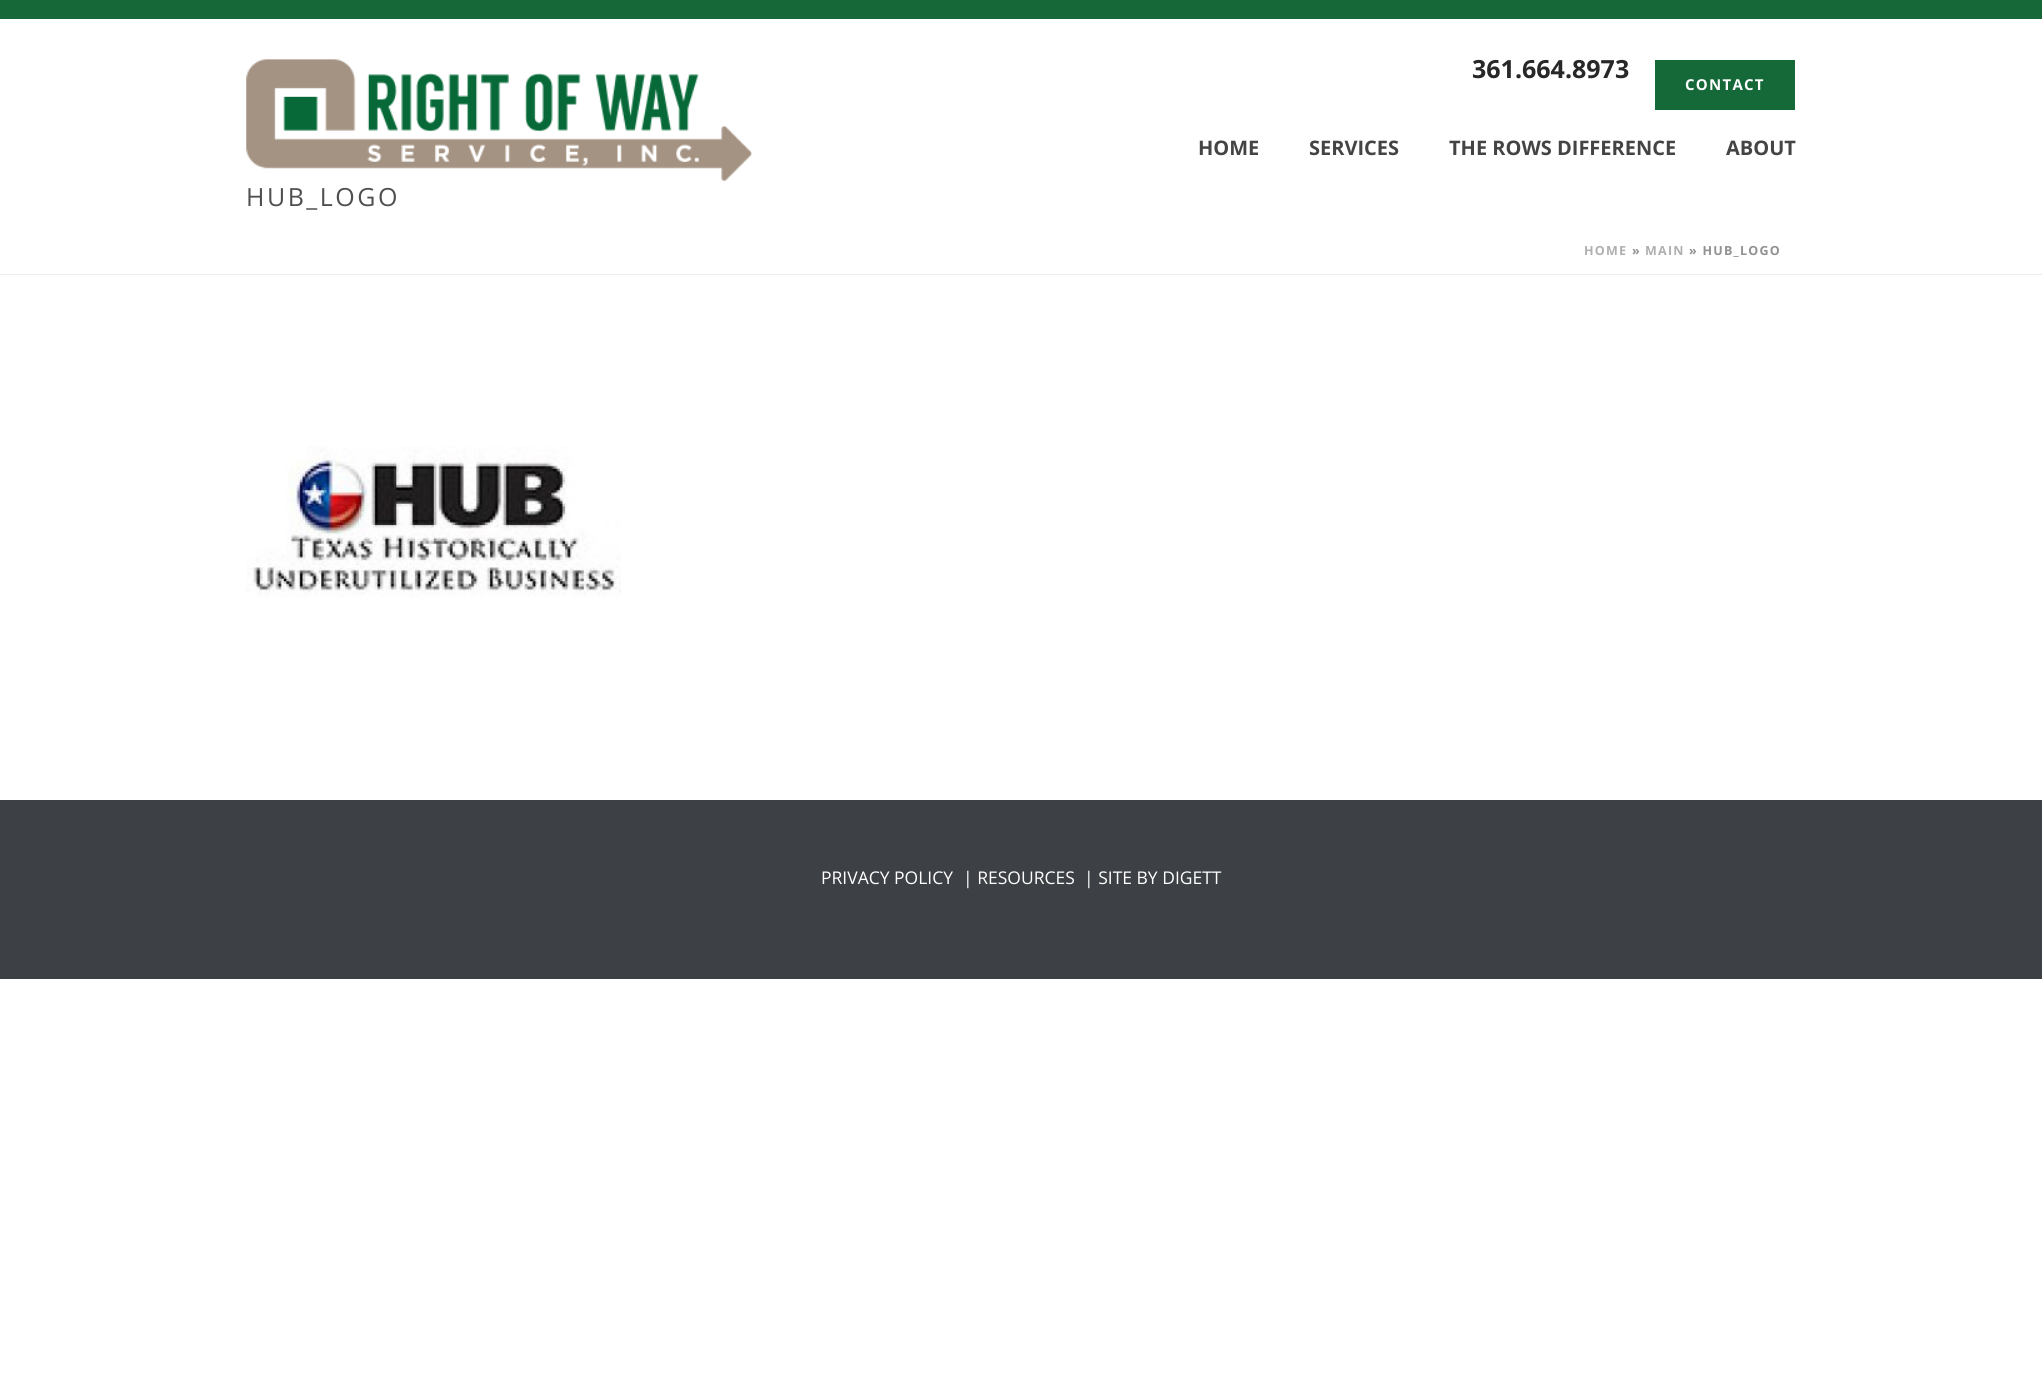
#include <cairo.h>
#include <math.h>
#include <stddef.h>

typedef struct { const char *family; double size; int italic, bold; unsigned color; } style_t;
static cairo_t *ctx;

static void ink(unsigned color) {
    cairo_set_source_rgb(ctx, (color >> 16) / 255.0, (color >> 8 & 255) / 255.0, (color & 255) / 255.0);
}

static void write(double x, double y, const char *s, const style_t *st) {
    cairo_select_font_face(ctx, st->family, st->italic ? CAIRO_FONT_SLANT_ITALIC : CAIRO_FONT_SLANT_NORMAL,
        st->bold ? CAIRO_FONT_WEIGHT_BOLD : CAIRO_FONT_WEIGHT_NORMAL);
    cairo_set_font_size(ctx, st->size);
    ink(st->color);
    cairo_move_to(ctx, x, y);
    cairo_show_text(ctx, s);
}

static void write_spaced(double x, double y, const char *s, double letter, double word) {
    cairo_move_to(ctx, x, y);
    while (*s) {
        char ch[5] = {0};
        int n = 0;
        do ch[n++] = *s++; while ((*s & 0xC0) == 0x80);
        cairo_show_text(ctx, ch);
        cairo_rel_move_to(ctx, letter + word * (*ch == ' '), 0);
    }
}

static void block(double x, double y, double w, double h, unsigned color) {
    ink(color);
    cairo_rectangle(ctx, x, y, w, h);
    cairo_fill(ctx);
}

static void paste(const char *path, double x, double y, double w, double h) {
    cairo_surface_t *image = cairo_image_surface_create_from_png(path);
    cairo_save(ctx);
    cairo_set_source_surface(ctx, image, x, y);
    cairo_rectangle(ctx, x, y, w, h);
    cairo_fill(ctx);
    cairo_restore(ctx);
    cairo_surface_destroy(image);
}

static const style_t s1 = {"Open Sans", 25, 0, 1, 0x282828};
static const style_t s2 = {"Open Sans", 20, 0, 1, 0x444444};
static const style_t s3 = {"Open Sans", 17.5, 0, 0, 0xffffff};

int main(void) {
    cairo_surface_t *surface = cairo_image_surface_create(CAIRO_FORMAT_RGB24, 2042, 1376);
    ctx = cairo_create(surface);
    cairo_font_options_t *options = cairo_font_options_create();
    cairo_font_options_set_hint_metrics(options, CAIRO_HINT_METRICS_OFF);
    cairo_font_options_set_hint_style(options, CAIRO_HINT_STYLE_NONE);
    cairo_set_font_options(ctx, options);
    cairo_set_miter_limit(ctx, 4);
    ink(0xffffff);
    cairo_paint(ctx);
    block(0, 274, 2042, 1, 0xededed);
    block(0, 0, 2042, 19, 0x176839);
    write(1472, 78, "361.664.8973", &s1);
    block(1655, 60, 140, 50, 0x156939);
    cairo_set_font_size(ctx, 15);
    ink(0xffffff);
    write_spaced(1685, 90, "CONTACT", 1.25, 0);
    paste("pic1.png", 246, 59, 506, 122);
    write(1198, 155, "HOME", &s2);
    write(1309, 155, "SERVICES", &s2);
    write(1449, 155, "THE ROWS DIFFERENCE", &s2);
    write(1726, 155, "ABOUT", &s2);
    cairo_select_font_face(ctx, "Open Sans", CAIRO_FONT_SLANT_NORMAL, CAIRO_FONT_WEIGHT_NORMAL);
    cairo_set_font_size(ctx, 25);
    ink(0x4f4f4f);
    write_spaced(246, 206, "HUB_LOGO", 2.5, 0);
    cairo_select_font_face(ctx, "Open Sans", CAIRO_FONT_SLANT_NORMAL, CAIRO_FONT_WEIGHT_BOLD);
    cairo_set_font_size(ctx, 12.5);
    ink(0xafafaf);
    write_spaced(1584, 255, "HOME", 1.25, 0);
    ink(0x919191);
    write_spaced(1632, 255, "»", 1.25, 0);
    ink(0xafafaf);
    write_spaced(1645, 255, "MAIN", 1.25, 0);
    ink(0x919191);
    write_spaced(1689, 255, "» HUB_LOGO", 1.25, 0);
    paste("pic2.png", 246, 446, 375, 151);
    block(0, 800, 2042, 179, 0x3d4045);
    write(821, 884, "PRIVACY POLICY", &s3);
    write(963, 884, "| RESOURCES", &s3);
    write(1084, 884, "| SITE BY DIGETT", &s3);
    cairo_surface_write_to_png(surface, "screenshot.png");
    cairo_font_options_destroy(options);
    cairo_destroy(ctx);
    cairo_surface_destroy(surface);
    return 0;
}
